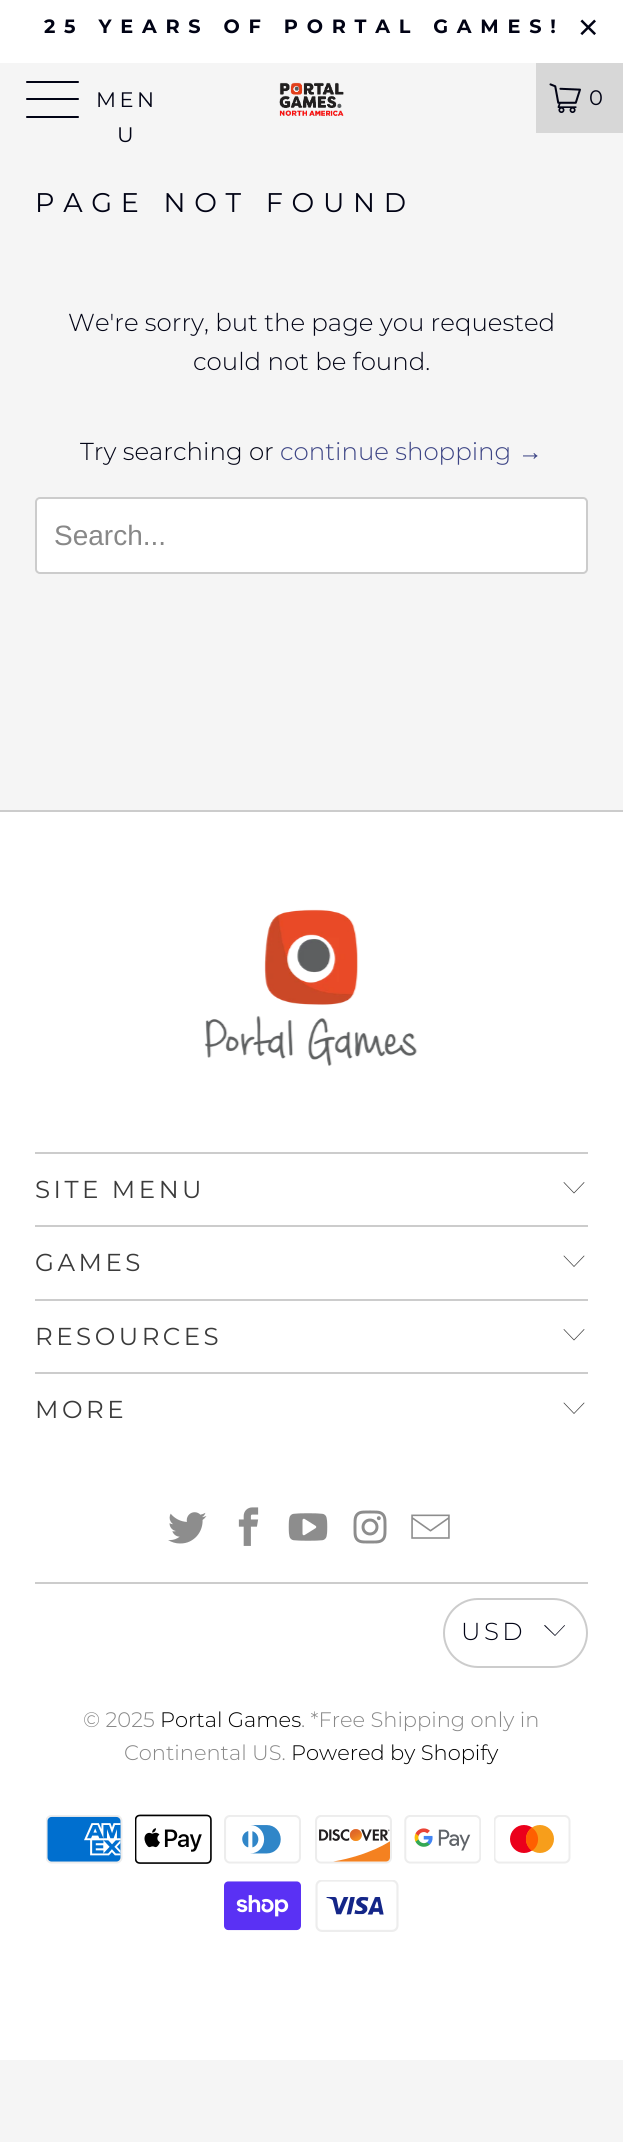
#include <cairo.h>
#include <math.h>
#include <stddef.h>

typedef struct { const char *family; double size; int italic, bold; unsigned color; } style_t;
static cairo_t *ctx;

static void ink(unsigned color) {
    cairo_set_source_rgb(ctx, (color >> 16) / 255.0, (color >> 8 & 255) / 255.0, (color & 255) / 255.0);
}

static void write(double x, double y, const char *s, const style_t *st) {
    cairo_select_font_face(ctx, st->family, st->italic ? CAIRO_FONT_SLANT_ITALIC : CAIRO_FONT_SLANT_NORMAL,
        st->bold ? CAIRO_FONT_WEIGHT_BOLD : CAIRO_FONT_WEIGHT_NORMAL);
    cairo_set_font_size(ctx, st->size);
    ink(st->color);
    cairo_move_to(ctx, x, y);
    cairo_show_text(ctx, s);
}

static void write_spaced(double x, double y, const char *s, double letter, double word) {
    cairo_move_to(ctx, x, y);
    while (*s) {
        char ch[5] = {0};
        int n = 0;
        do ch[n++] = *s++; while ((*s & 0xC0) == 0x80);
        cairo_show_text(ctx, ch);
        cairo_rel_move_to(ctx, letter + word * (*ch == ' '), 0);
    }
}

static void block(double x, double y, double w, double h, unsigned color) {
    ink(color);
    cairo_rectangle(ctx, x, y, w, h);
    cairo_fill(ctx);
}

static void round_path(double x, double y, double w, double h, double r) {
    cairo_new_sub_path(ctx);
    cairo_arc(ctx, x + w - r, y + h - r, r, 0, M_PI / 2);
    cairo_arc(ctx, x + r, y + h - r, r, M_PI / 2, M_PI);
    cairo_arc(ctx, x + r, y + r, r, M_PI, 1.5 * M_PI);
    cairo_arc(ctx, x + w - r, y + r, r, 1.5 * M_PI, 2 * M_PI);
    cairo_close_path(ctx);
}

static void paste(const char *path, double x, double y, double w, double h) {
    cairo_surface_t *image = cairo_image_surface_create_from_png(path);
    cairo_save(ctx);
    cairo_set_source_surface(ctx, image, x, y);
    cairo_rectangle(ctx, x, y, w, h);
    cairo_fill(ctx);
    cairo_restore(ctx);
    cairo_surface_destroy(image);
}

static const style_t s1 = {"Montserrat Light", 24.5, 0, 0, 0x010315};
static const style_t s2 = {"Montserrat Light", 24.5, 0, 0, 0x3d4585};
static const style_t s3 = {"Liberation Sans", 24.5, 0, 0, 0x3d4585};
static const style_t s4 = {"Liberation Sans", 28, 0, 0, 0x888888};
static const style_t s5 = {"Montserrat Light", 21, 0, 0, 0x888888};
static const style_t s6 = {"Montserrat Light", 21, 0, 0, 0x000000};

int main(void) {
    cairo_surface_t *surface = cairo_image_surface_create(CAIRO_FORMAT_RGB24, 623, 2142);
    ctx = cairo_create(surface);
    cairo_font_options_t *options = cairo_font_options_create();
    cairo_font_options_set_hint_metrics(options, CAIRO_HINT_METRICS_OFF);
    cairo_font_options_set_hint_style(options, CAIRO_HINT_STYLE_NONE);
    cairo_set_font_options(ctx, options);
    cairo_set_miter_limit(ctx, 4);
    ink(0xf5f5f5);
    cairo_paint(ctx);
    block(0, 0, 623, 63, 0xffffff);
    cairo_select_font_face(ctx, "Montserrat", CAIRO_FONT_SLANT_NORMAL, CAIRO_FONT_WEIGHT_BOLD);
    cairo_set_font_size(ctx, 19.25);
    ink(0x010315);
    write_spaced(44, 33, "25 YEARS OF PORTAL GAMES!", 8.75, 0);
    cairo_select_font_face(ctx, "Liberation Sans", CAIRO_FONT_SLANT_NORMAL, CAIRO_FONT_WEIGHT_NORMAL);
    cairo_set_font_size(ctx, 35);
    write_spaced(578, 39, "×", 8.75, 0);
    round_path(26, 81, 53, 2, 1);
    cairo_fill(ctx);
    round_path(26, 98, 53, 2, 1);
    cairo_fill(ctx);
    round_path(26, 116, 53, 2, 1);
    cairo_fill(ctx);
    cairo_select_font_face(ctx, "Montserrat", CAIRO_FONT_SLANT_NORMAL, CAIRO_FONT_WEIGHT_NORMAL);
    cairo_set_font_size(ctx, 21);
    write_spaced(96, 107, "MEN", 3.5, 0);
    write_spaced(117, 142, "U", 3.5, 0);
    paste("pic1.png", 279, 82, 65, 34);
    block(536, 63, 87, 70, 0xd7d7d7);
    paste("pic2.png", 549, 83, 32, 30);
    ink(0x010315);
    write_spaced(589, 105, "0", 2, 0);
    cairo_set_font_size(ctx, 27);
    write_spaced(35, 212, "PAGE NOT FOUND", 8.75, 0);
    write(68, 331, "We're sorry, but the page you requested", &s1);
    write(193, 370, "could not be found.", &s1);
    write(80, 460, "Try searching or", &s1);
    write(280, 460, "continue shopping", &s2);
    write(518, 460, "→", &s3);
    ink(0xffffff);
    round_path(36, 498, 551, 75, 4);
    cairo_fill_preserve(ctx);
    ink(0xcccccc);
    cairo_stroke(ctx);
    write(54, 545, "Search...", &s4);
    block(0, 812, 623, 1248, 0xffffff);
    block(0, 810, 623, 2, 0xcccccc);
    paste("pic3.png", 204, 909, 214, 157);
    block(35, 1152, 553, 2, 0xcccccc);
    cairo_select_font_face(ctx, "Montserrat", CAIRO_FONT_SLANT_NORMAL, CAIRO_FONT_WEIGHT_NORMAL);
    cairo_set_font_size(ctx, 24.5);
    ink(0x3b3b3b);
    write_spaced(35, 1198, "SITE MENU", 3.5, 0);
    cairo_new_path(ctx);
    cairo_move_to(ctx, 574, 1193.5);
    cairo_line_to(ctx, 563.5, 1182.5);
    cairo_line_to(ctx, 564, 1182);
    cairo_line_to(ctx, 574, 1192.5);
    cairo_line_to(ctx, 584, 1182);
    cairo_line_to(ctx, 584.5, 1182.5);
    cairo_close_path(ctx);
    cairo_fill(ctx);
    block(35, 1225, 553, 2, 0xcccccc);
    ink(0x3b3b3b);
    write_spaced(35, 1271, "GAMES", 3.5, 0);
    cairo_new_path(ctx);
    cairo_move_to(ctx, 574, 1267);
    cairo_line_to(ctx, 563.5, 1256);
    cairo_line_to(ctx, 564, 1255.5);
    cairo_line_to(ctx, 574, 1266);
    cairo_line_to(ctx, 584, 1255.5);
    cairo_line_to(ctx, 584.5, 1256);
    cairo_close_path(ctx);
    cairo_fill(ctx);
    block(35, 1299, 553, 2, 0xcccccc);
    ink(0x3b3b3b);
    write_spaced(35, 1345, "RESOURCES", 3.5, 0);
    cairo_new_path(ctx);
    cairo_move_to(ctx, 574, 1340.5);
    cairo_line_to(ctx, 563.5, 1329.5);
    cairo_line_to(ctx, 564, 1329);
    cairo_line_to(ctx, 574, 1339.5);
    cairo_line_to(ctx, 584, 1329);
    cairo_line_to(ctx, 584.5, 1329.5);
    cairo_close_path(ctx);
    cairo_fill(ctx);
    block(35, 1372, 553, 2, 0xcccccc);
    ink(0x3b3b3b);
    write_spaced(35, 1418, "MORE", 3.5, 0);
    cairo_new_path(ctx);
    cairo_move_to(ctx, 574, 1414);
    cairo_line_to(ctx, 563.5, 1403);
    cairo_line_to(ctx, 564, 1402.5);
    cairo_line_to(ctx, 574, 1413);
    cairo_line_to(ctx, 584, 1402.5);
    cairo_line_to(ctx, 584.5, 1403);
    cairo_close_path(ctx);
    cairo_fill(ctx);
    paste("pic4.png", 168, 1512, 39, 32);
    paste("pic5.png", 238, 1507, 21, 39);
    paste("pic6.png", 288, 1513, 40, 28);
    paste("pic7.png", 353, 1510, 34, 34);
    paste("pic8.png", 411, 1514, 39, 25);
    block(35, 1582, 553, 2, 0xcccccc);
    round_path(444, 1599, 143, 68, 34);
    cairo_stroke(ctx);
    cairo_select_font_face(ctx, "Montserrat Light", CAIRO_FONT_SLANT_NORMAL, CAIRO_FONT_WEIGHT_NORMAL);
    ink(0x010315);
    write_spaced(461, 1640, "USD", 3.5, 0);
    cairo_new_path(ctx);
    cairo_move_to(ctx, 555, 1636);
    cairo_line_to(ctx, 544, 1625.5);
    cairo_line_to(ctx, 545, 1625);
    cairo_line_to(ctx, 555, 1635);
    cairo_line_to(ctx, 564.5, 1625);
    cairo_line_to(ctx, 565, 1625.5);
    cairo_close_path(ctx);
    cairo_fill(ctx);
    write(83, 1727, "© 2025", &s5);
    write(160, 1727, "Portal Games", &s6);
    write(301, 1727, ". *Free Shipping only in", &s5);
    write(124, 1760, "Continental US.", &s5);
    write(291, 1760, "Powered by Shopify", &s6);
    paste("pic9.png", 46, 1815, 77, 49);
    paste("pic10.png", 135, 1814, 77, 50);
    paste("pic11.png", 224, 1815, 77, 49);
    paste("pic12.png", 315, 1815, 77, 49);
    paste("pic13.png", 404, 1815, 77, 49);
    paste("pic14.png", 494, 1815, 77, 49);
    paste("pic15.png", 224, 1881, 77, 50);
    paste("pic16.png", 315, 1880, 84, 52);
    cairo_surface_write_to_png(surface, "screenshot.png");
    cairo_font_options_destroy(options);
    cairo_destroy(ctx);
    cairo_surface_destroy(surface);
    return 0;
}
